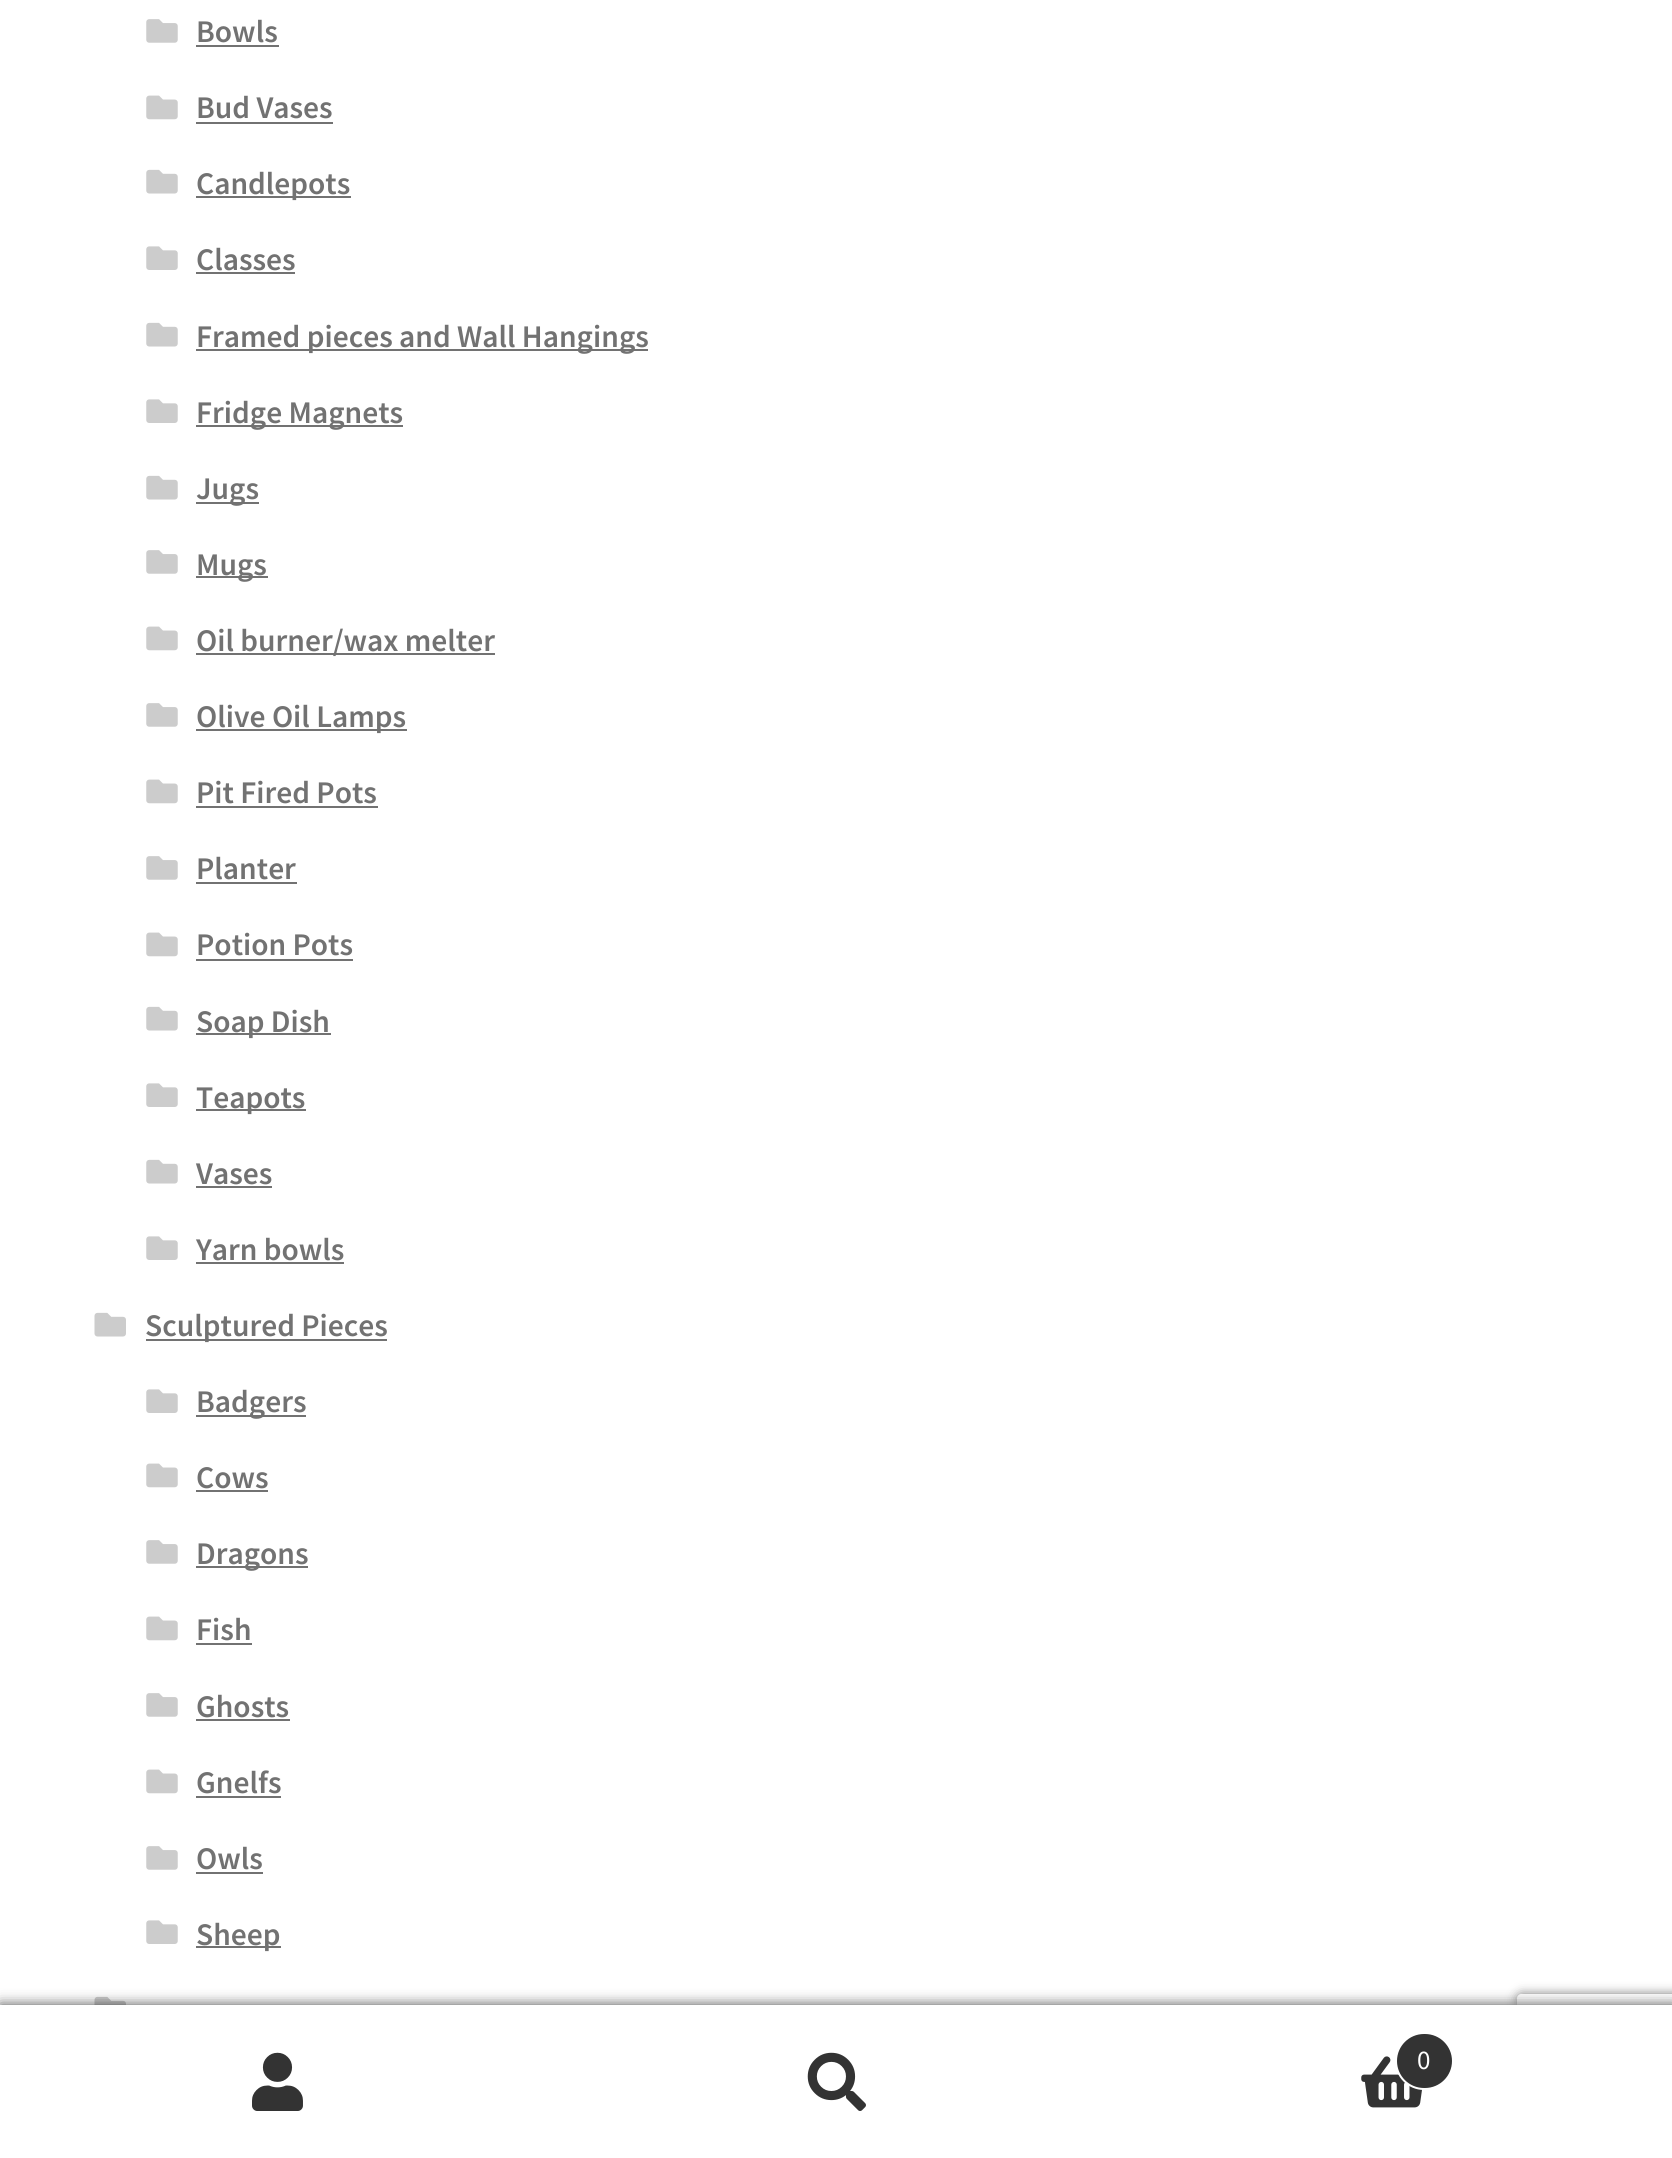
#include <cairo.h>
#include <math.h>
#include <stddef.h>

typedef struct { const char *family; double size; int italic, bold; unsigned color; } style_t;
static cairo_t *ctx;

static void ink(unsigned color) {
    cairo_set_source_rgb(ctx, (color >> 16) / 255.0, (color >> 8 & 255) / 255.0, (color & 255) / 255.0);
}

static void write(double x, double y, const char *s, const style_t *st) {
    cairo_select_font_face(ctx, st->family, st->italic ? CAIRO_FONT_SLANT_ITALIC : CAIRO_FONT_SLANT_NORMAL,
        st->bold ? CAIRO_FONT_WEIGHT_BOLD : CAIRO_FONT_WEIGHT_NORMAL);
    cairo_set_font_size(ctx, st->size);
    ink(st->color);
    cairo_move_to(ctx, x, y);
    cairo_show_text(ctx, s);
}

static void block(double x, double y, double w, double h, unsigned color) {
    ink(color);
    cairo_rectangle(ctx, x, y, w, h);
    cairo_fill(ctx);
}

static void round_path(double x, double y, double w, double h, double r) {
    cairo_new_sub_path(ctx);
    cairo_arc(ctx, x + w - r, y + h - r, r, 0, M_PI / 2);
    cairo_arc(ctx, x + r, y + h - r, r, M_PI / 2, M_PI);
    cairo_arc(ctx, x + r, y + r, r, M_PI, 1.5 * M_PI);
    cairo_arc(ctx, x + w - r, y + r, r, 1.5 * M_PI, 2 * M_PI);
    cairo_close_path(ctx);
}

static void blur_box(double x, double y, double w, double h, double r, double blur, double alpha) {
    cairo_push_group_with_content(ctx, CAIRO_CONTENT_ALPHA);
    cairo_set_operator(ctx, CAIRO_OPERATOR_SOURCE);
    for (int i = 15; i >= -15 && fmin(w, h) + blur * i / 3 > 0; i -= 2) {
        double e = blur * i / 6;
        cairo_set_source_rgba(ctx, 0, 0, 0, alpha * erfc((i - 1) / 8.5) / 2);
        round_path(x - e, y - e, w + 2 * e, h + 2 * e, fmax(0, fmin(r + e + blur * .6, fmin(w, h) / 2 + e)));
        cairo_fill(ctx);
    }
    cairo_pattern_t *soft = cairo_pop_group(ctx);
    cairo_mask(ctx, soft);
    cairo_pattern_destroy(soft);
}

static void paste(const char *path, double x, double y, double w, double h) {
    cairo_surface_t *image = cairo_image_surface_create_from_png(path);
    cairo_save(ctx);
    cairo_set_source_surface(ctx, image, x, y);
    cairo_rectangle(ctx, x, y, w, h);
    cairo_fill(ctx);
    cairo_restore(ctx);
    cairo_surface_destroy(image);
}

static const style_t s1 = {"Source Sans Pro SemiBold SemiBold", 31.5, 0, 0, 0x727272};
static const style_t s2 = {"Source Sans Pro", 27, 0, 0, 0xffffff};

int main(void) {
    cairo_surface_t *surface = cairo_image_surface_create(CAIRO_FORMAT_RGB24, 1672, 2158);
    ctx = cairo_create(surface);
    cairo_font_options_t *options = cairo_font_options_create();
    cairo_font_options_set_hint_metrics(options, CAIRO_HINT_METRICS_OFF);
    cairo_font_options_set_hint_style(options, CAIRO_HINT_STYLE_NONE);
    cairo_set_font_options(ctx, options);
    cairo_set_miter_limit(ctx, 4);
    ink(0xffffff);
    cairo_paint(ctx);
    paste("pic1.png", 146, 19, 32, 24);
    write(196, 42, "Bowls", &s1);
    block(196, 45, 83, 2, 0x727272);
    paste("pic2.png", 146, 95, 32, 25);
    write(196, 118, "Bud Vases", &s1);
    block(196, 122, 137, 2, 0x727272);
    paste("pic3.png", 146, 169, 32, 25);
    block(196, 196, 155, 2, 0x727272);
    write(196, 194, "Candlepots", &s1);
    paste("pic4.png", 146, 246, 32, 24);
    write(196, 270, "Classes", &s1);
    block(196, 272, 99, 2, 0x727272);
    paste("pic3.png", 146, 322, 32, 25);
    block(196, 349, 452, 2, 0x727272);
    write(196, 347, "Framed pieces and Wall Hangings", &s1);
    paste("pic4.png", 146, 399, 32, 24);
    block(196, 425, 207, 2, 0x727272);
    write(196, 423, "Fridge Magnets", &s1);
    paste("pic3.png", 146, 475, 32, 25);
    block(196, 502, 63, 2, 0x727272);
    write(196, 499, "Jugs", &s1);
    paste("pic1.png", 146, 550, 32, 24);
    block(196, 576, 72, 2, 0x727272);
    write(196, 575, "Mugs", &s1);
    paste("pic2.png", 146, 626, 32, 25);
    block(196, 653, 299, 2, 0x727272);
    write(196, 651, "Oil burner/wax melter", &s1);
    paste("pic1.png", 146, 703, 32, 24);
    block(196, 729, 211, 2, 0x727272);
    write(196, 727, "Olive Oil Lamps", &s1);
    paste("pic2.png", 146, 779, 32, 25);
    write(196, 803, "Pit Fired Pots", &s1);
    block(196, 806, 182, 2, 0x727272);
    paste("pic1.png", 146, 856, 32, 24);
    write(196, 879, "Planter", &s1);
    block(196, 882, 101, 2, 0x727272);
    paste("pic2.png", 146, 932, 32, 25);
    write(196, 955, "Potion Pots", &s1);
    block(196, 959, 157, 2, 0x727272);
    paste("pic3.png", 146, 1006, 32, 25);
    block(196, 1033, 135, 2, 0x727272);
    write(196, 1032, "Soap Dish", &s1);
    paste("pic4.png", 146, 1083, 32, 24);
    block(196, 1109, 110, 2, 0x727272);
    write(196, 1108, "Teapots", &s1);
    paste("pic3.png", 146, 1159, 32, 25);
    write(196, 1184, "Vases", &s1);
    block(196, 1186, 76, 2, 0x727272);
    paste("pic4.png", 146, 1236, 32, 24);
    write(196, 1260, "Yarn bowls", &s1);
    block(196, 1262, 148, 2, 0x727272);
    paste("pic5.png", 94, 1312, 32, 25);
    block(146, 1339, 241, 2, 0x727272);
    write(145, 1336, "Sculptured Pieces", &s1);
    paste("pic4.png", 146, 1389, 32, 24);
    block(196, 1415, 110, 2, 0x727272);
    write(196, 1412, "Badgers", &s1);
    paste("pic2.png", 146, 1463, 32, 25);
    write(196, 1488, "Cows", &s1);
    block(196, 1490, 72, 2, 0x727272);
    paste("pic1.png", 146, 1540, 32, 24);
    block(196, 1566, 112, 2, 0x727272);
    write(196, 1564, "Dragons", &s1);
    paste("pic2.png", 146, 1616, 32, 25);
    write(196, 1640, "Fish", &s1);
    block(196, 1643, 56, 2, 0x727272);
    paste("pic1.png", 146, 1693, 32, 24);
    write(196, 1717, "Ghosts", &s1);
    block(196, 1719, 94, 2, 0x727272);
    paste("pic2.png", 146, 1769, 32, 25);
    write(196, 1793, "Gnelfs", &s1);
    block(196, 1796, 85, 2, 0x727272);
    paste("pic1.png", 146, 1846, 32, 24);
    write(196, 1869, "Owls", &s1);
    block(196, 1872, 67, 2, 0x727272);
    paste("pic4.png", 146, 1920, 32, 24);
    block(196, 1946, 85, 2, 0x727272);
    write(196, 1945, "Sheep", &s1);
    paste("pic6.png", 94, 1996, 32, 9);
    ink(0x000000);
    blur_box(0, 2005, 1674, 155, 0, 7, 0.7);
    cairo_save(ctx);
    cairo_set_fill_rule(ctx, CAIRO_FILL_RULE_EVEN_ODD);
    cairo_new_path(ctx);
    cairo_move_to(ctx, 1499, 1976);
    cairo_line_to(ctx, 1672, 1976);
    cairo_line_to(ctx, 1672, 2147);
    cairo_line_to(ctx, 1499, 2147);
    cairo_close_path(ctx);
    cairo_move_to(ctx, 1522, 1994);
    cairo_line_to(ctx, 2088, 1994);
    cairo_curve_to(ctx, 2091, 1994, 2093, 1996, 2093, 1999);
    cairo_line_to(ctx, 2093, 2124);
    cairo_curve_to(ctx, 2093, 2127, 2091, 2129, 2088, 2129);
    cairo_line_to(ctx, 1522, 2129);
    cairo_curve_to(ctx, 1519, 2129, 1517, 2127, 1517, 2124);
    cairo_line_to(ctx, 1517, 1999);
    cairo_curve_to(ctx, 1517, 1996, 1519, 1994, 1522, 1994);
    cairo_close_path(ctx);
    cairo_clip(ctx);
    ink(0x808080);
    blur_box(1517, 1994, 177, 135, 5, 5.5, 1);
    cairo_restore(ctx);
    block(0, 2005, 1672, 2, 0xffffff);
    block(0, 2007, 1672, 151, 0xffffff);
    paste("pic7.png", 252, 2052, 51, 59);
    paste("pic8.png", 807, 2052, 59, 59);
    paste("pic9.png", 1361, 2056, 62, 52);
    ink(0x333333);
    round_path(1396, 2033, 57, 56, 28);
    cairo_fill_preserve(ctx);
    ink(0xffffff);
    cairo_stroke(ctx);
    write(1417, 2069, "0", &s2);
    cairo_surface_write_to_png(surface, "screenshot.png");
    cairo_font_options_destroy(options);
    cairo_destroy(ctx);
    cairo_surface_destroy(surface);
    return 0;
}
